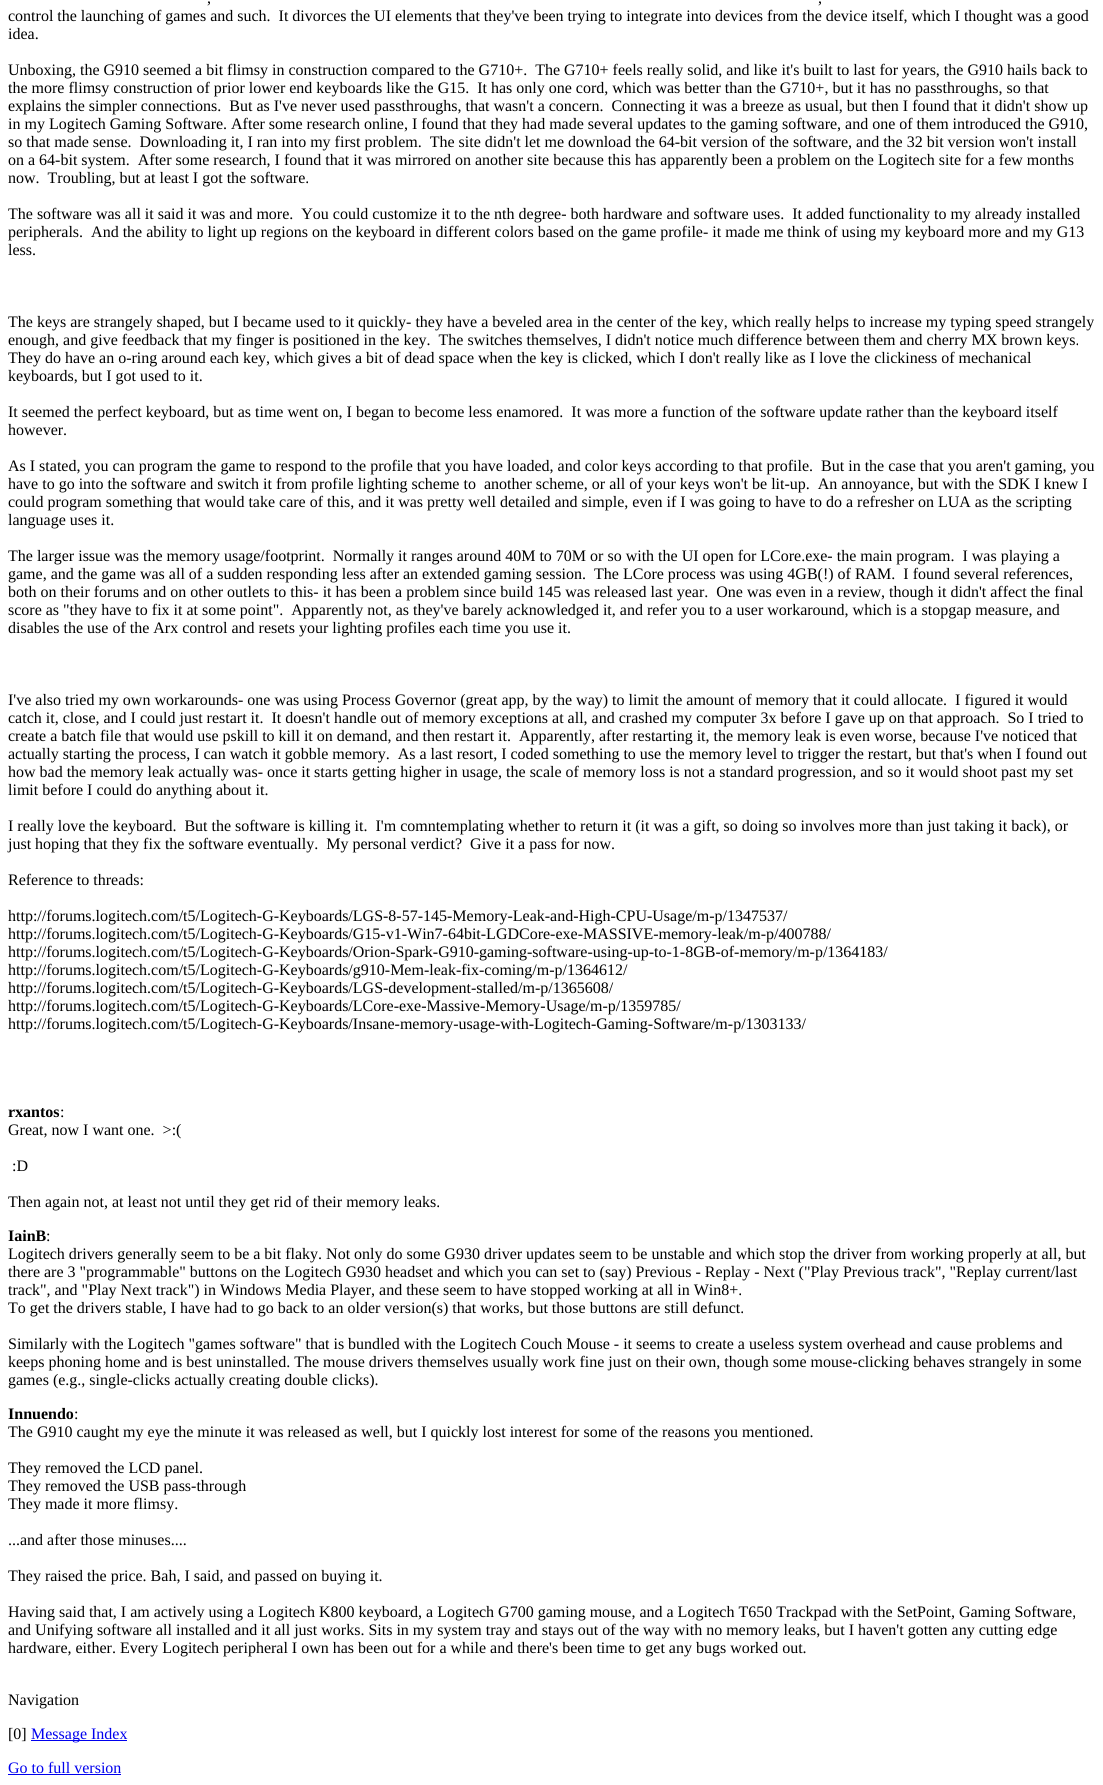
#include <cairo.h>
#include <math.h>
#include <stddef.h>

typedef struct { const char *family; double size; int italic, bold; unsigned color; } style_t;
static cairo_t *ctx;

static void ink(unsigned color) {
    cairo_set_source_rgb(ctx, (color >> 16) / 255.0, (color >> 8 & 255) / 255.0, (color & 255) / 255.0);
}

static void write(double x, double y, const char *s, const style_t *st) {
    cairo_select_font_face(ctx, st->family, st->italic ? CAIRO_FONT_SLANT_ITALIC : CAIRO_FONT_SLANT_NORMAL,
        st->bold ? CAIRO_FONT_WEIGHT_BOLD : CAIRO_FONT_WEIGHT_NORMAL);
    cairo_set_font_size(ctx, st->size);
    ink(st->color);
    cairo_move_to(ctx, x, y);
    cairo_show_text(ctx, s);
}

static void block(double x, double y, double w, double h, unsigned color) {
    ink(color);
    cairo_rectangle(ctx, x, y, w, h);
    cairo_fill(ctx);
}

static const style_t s1 = {"Liberation Serif", 16, 0, 0, 0x000000};
static const style_t s2 = {"Liberation Serif", 16, 0, 1, 0x000000};
static const style_t s3 = {"Liberation Serif", 16, 0, 0, 0x0000ee};

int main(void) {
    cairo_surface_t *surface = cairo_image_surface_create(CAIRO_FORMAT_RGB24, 1103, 1785);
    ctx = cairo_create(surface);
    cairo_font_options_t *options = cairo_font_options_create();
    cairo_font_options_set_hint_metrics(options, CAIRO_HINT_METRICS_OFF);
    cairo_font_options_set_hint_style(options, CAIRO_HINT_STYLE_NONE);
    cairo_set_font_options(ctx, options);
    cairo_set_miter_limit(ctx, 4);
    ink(0xffffff);
    cairo_paint(ctx);
    write(207, 3, ",", &s1);
    write(818, 3, ",", &s1);
    write(8, 21, "control the launching of games and such.  It divorces the UI elements that they've been trying to integrate into devices from the device itself, which I thought was a good", &s1);
    write(8, 39, "idea.", &s1);
    write(8, 75, "Unboxing, the G910 seemed a bit flimsy in construction compared to the G710+.  The G710+ feels really solid, and like it's built to last for years, the G910 hails back to", &s1);
    write(8, 93, "the more flimsy construction of prior lower end keyboards like the G15.  It has only one cord, which was better than the G710+, but it has no passthroughs, so that", &s1);
    write(8, 111, "explains the simpler connections.  But as I've never used passthroughs, that wasn't a concern.  Connecting it was a breeze as usual, but then I found that it didn't show up", &s1);
    write(8, 129, "in my Logitech Gaming Software. After some research online, I found that they had made several updates to the gaming software, and one of them introduced the G910,", &s1);
    write(8, 147, "so that made sense.  Downloading it, I ran into my first problem.  The site didn't let me download the 64-bit version of the software, and the 32 bit version won't install", &s1);
    write(8, 165, "on a 64-bit system.  After some research, I found that it was mirrored on another site because this has apparently been a problem on the Logitech site for a few months", &s1);
    write(8, 183, "now.  Troubling, but at least I got the software.", &s1);
    write(8, 219, "The software was all it said it was and more.  You could customize it to the nth degree- both hardware and software uses.  It added functionality to my already installed", &s1);
    write(8, 237, "peripherals.  And the ability to light up regions on the keyboard in different colors based on the game profile- it made me think of using my keyboard more and my G13", &s1);
    write(8, 255, "less.", &s1);
    write(8, 327, "The keys are strangely shaped, but I became used to it quickly- they have a beveled area in the center of the key, which really helps to increase my typing speed strangely", &s1);
    write(8, 345, "enough, and give feedback that my finger is positioned in the key.  The switches themselves, I didn't notice much difference between them and cherry MX brown keys.", &s1);
    write(8, 363, "They do have an o-ring around each key, which gives a bit of dead space when the key is clicked, which I don't really like as I love the clickiness of mechanical", &s1);
    write(8, 381, "keyboards, but I got used to it.", &s1);
    write(8, 417, "It seemed the perfect keyboard, but as time went on, I began to become less enamored.  It was more a function of the software update rather than the keyboard itself", &s1);
    write(8, 435, "however.", &s1);
    write(8, 471, "As I stated, you can program the game to respond to the profile that you have loaded, and color keys according to that profile.  But in the case that you aren't gaming, you", &s1);
    write(8, 489, "have to go into the software and switch it from profile lighting scheme to  another scheme, or all of your keys won't be lit-up.  An annoyance, but with the SDK I knew I", &s1);
    write(8, 507, "could program something that would take care of this, and it was pretty well detailed and simple, even if I was going to have to do a refresher on LUA as the scripting", &s1);
    write(8, 525, "language uses it.", &s1);
    write(8, 561, "The larger issue was the memory usage/footprint.  Normally it ranges around 40M to 70M or so with the UI open for LCore.exe- the main program.  I was playing a", &s1);
    write(8, 579, "game, and the game was all of a sudden responding less after an extended gaming session.  The LCore process was using 4GB(!) of RAM.  I found several references,", &s1);
    write(8, 597, "both on their forums and on other outlets to this- it has been a problem since build 145 was released last year.  One was even in a review, though it didn't affect the final", &s1);
    write(8, 615, "score as \"they have to fix it at some point\".  Apparently not, as they've barely acknowledged it, and refer you to a user workaround, which is a stopgap measure, and", &s1);
    write(8, 633, "disables the use of the Arx control and resets your lighting profiles each time you use it.", &s1);
    write(8, 705, "I've also tried my own workarounds- one was using Process Governor (great app, by the way) to limit the amount of memory that it could allocate.  I figured it would", &s1);
    write(8, 723, "catch it, close, and I could just restart it.  It doesn't handle out of memory exceptions at all, and crashed my computer 3x before I gave up on that approach.  So I tried to", &s1);
    write(8, 741, "create a batch file that would use pskill to kill it on demand, and then restart it.  Apparently, after restarting it, the memory leak is even worse, because I've noticed that", &s1);
    write(8, 759, "actually starting the process, I can watch it gobble memory.  As a last resort, I coded something to use the memory level to trigger the restart, but that's when I found out", &s1);
    write(8, 777, "how bad the memory leak actually was- once it starts getting higher in usage, the scale of memory loss is not a standard progression, and so it would shoot past my set", &s1);
    write(8, 795, "limit before I could do anything about it.", &s1);
    write(8, 831, "I really love the keyboard.  But the software is killing it.  I'm comntemplating whether to return it (it was a gift, so doing so involves more than just taking it back), or", &s1);
    write(8, 849, "just hoping that they fix the software eventually.  My personal verdict?  Give it a pass for now.", &s1);
    write(8, 885, "Reference to threads:", &s1);
    write(8, 921, "http://forums.logitech.com/t5/Logitech-G-Keyboards/LGS-8-57-145-Memory-Leak-and-High-CPU-Usage/m-p/1347537/", &s1);
    write(8, 939, "http://forums.logitech.com/t5/Logitech-G-Keyboards/G15-v1-Win7-64bit-LGDCore-exe-MASSIVE-memory-leak/m-p/400788/", &s1);
    write(8, 957, "http://forums.logitech.com/t5/Logitech-G-Keyboards/Orion-Spark-G910-gaming-software-using-up-to-1-8GB-of-memory/m-p/1364183/", &s1);
    write(8, 975, "http://forums.logitech.com/t5/Logitech-G-Keyboards/g910-Mem-leak-fix-coming/m-p/1364612/", &s1);
    write(8, 993, "http://forums.logitech.com/t5/Logitech-G-Keyboards/LGS-development-stalled/m-p/1365608/", &s1);
    write(8, 1011, "http://forums.logitech.com/t5/Logitech-G-Keyboards/LCore-exe-Massive-Memory-Usage/m-p/1359785/", &s1);
    write(8, 1029, "http://forums.logitech.com/t5/Logitech-G-Keyboards/Insane-memory-usage-with-Logitech-Gaming-Software/m-p/1303133/", &s1);
    write(8, 1117, "rxantos", &s2);
    write(60, 1117, ":", &s1);
    write(8, 1135, "Great, now I want one.  >:(", &s1);
    write(12, 1171, ":D", &s1);
    write(8, 1207, "Then again not, at least not until they get rid of their memory leaks.", &s1);
    write(8, 1241, "IainB", &s2);
    write(46, 1241, ":", &s1);
    write(8, 1259, "Logitech drivers generally seem to be a bit flaky. Not only do some G930 driver updates seem to be unstable and which stop the driver from working properly at all, but", &s1);
    write(8, 1277, "there are 3 \"programmable\" buttons on the Logitech G930 headset and which you can set to (say) Previous - Replay - Next (\"Play Previous track\", \"Replay current/last", &s1);
    write(8, 1295, "track\", and \"Play Next track\") in Windows Media Player, and these seem to have stopped working at all in Win8+.", &s1);
    write(8, 1313, "To get the drivers stable, I have had to go back to an older version(s) that works, but those buttons are still defunct.", &s1);
    write(8, 1349, "Similarly with the Logitech \"games software\" that is bundled with the Logitech Couch Mouse - it seems to create a useless system overhead and cause problems and", &s1);
    write(8, 1367, "keeps phoning home and is best uninstalled. The mouse drivers themselves usually work fine just on their own, though some mouse-clicking behaves strangely in some", &s1);
    write(8, 1385, "games (e.g., single-clicks actually creating double clicks).", &s1);
    write(8, 1419, "Innuendo", &s2);
    write(74, 1419, ":", &s1);
    write(8, 1437, "The G910 caught my eye the minute it was released as well, but I quickly lost interest for some of the reasons you mentioned.", &s1);
    write(8, 1473, "They removed the LCD panel.", &s1);
    write(8, 1491, "They removed the USB pass-through", &s1);
    write(8, 1509, "They made it more flimsy.", &s1);
    write(8, 1545, "...and after those minuses....", &s1);
    write(8, 1581, "They raised the price. Bah, I said, and passed on buying it.", &s1);
    write(8, 1617, "Having said that, I am actively using a Logitech K800 keyboard, a Logitech G700 gaming mouse, and a Logitech T650 Trackpad with the SetPoint, Gaming Software,", &s1);
    write(8, 1635, "and Unifying software all installed and it all just works. Sits in my system tray and stays out of the way with no memory leaks, but I haven't gotten any cutting edge", &s1);
    write(8, 1653, "hardware, either. Every Logitech peripheral I own has been out for a while and there's been time to get any bugs worked out.", &s1);
    write(8, 1705, "Navigation", &s1);
    write(8, 1739, "[0]", &s1);
    block(31, 1740, 96, 1, 0x0000ee);
    write(31, 1739, "Message Index", &s3);
    write(8, 1773, "Go to full version", &s3);
    block(8, 1774, 113, 1, 0x0000ee);
    cairo_surface_write_to_png(surface, "screenshot.png");
    cairo_font_options_destroy(options);
    cairo_destroy(ctx);
    cairo_surface_destroy(surface);
    return 0;
}
